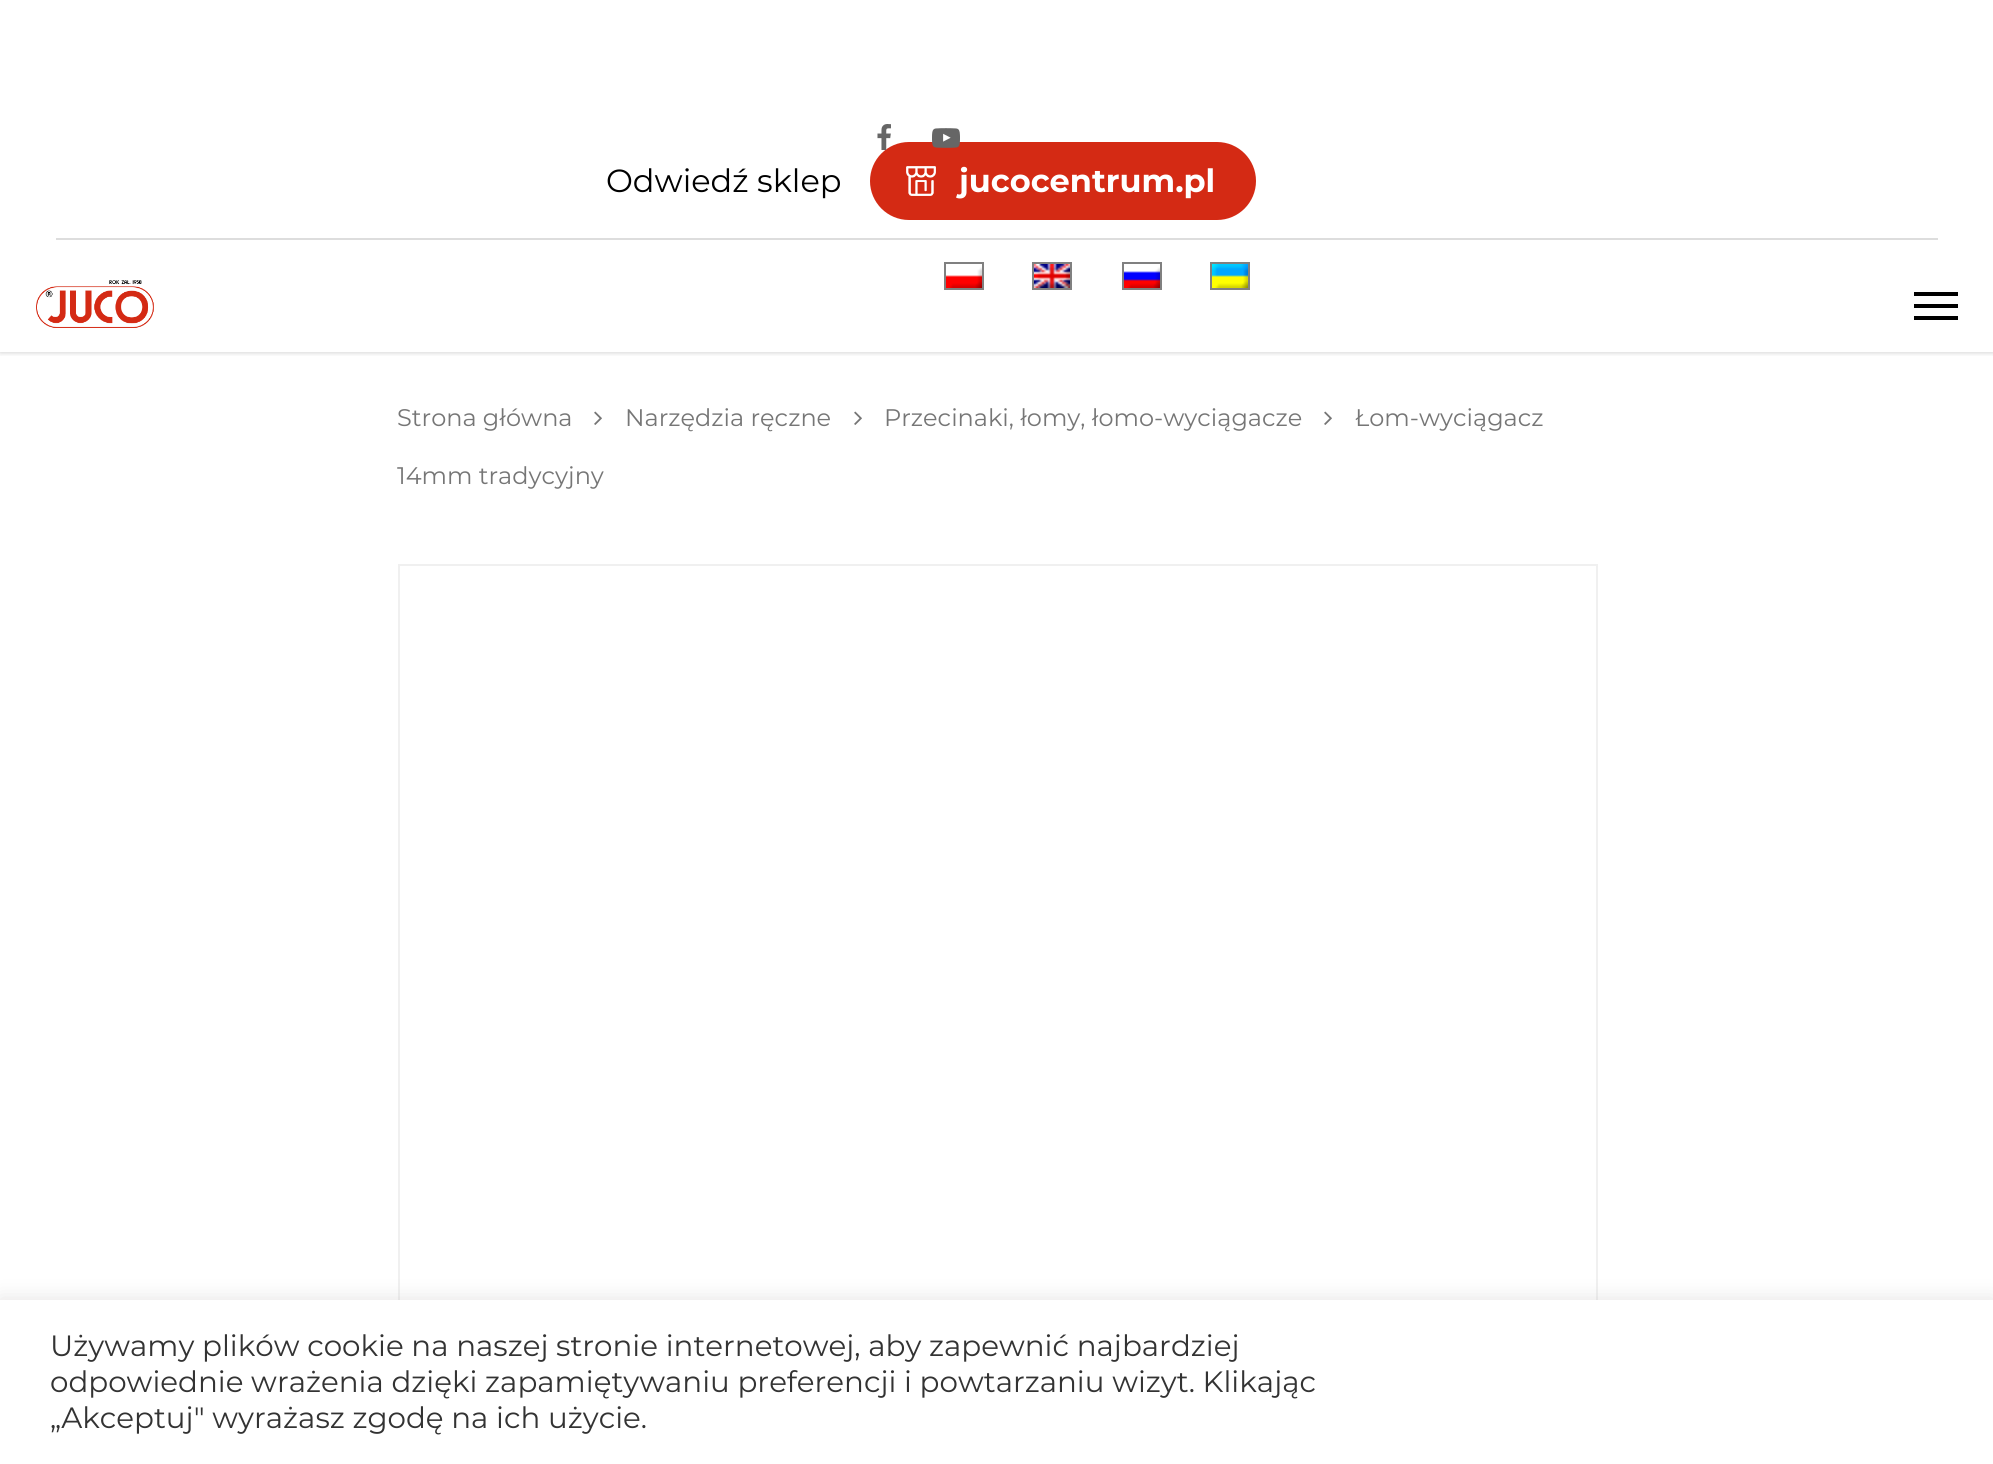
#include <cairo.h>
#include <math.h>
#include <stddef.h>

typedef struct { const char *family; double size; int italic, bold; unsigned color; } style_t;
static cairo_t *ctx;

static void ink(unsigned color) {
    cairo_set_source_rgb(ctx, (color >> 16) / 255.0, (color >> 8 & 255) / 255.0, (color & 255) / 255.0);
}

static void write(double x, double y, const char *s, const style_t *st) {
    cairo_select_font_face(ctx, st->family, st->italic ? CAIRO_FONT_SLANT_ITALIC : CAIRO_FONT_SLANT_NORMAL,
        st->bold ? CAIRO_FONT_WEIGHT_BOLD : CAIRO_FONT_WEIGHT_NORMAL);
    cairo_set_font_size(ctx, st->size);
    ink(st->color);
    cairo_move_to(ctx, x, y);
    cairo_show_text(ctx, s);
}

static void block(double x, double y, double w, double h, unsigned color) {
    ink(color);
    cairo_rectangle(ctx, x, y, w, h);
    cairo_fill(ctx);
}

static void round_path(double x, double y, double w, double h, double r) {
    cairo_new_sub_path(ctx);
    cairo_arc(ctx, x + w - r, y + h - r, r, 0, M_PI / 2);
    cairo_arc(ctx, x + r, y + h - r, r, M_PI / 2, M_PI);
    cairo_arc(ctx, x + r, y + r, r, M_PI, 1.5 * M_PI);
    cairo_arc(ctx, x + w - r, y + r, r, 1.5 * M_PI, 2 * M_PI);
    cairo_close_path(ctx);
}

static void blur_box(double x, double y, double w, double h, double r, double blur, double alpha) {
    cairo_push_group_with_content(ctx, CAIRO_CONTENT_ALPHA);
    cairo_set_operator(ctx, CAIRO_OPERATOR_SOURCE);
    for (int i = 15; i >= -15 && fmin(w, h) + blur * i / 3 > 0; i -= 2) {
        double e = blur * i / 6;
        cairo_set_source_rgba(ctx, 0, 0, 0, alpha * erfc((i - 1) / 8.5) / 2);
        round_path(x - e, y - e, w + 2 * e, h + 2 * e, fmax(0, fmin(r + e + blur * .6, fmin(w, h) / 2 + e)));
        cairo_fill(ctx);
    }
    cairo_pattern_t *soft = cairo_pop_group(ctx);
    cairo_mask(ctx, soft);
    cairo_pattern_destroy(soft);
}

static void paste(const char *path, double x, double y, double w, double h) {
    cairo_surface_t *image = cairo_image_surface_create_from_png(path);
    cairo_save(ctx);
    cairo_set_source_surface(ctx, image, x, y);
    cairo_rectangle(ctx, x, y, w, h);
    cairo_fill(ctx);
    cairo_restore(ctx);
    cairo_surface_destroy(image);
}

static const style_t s1 = {"Montserrat", 32, 0, 0, 0x000000};
static const style_t s2 = {"Montserrat", 32, 0, 1, 0xffffff};
static const style_t s3 = {"Montserrat", 24, 0, 0, 0x767676};
static const style_t s4 = {"Montserrat", 29.35, 0, 0, 0x333333};

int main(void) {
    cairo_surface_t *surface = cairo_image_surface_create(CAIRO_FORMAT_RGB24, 1993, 1464);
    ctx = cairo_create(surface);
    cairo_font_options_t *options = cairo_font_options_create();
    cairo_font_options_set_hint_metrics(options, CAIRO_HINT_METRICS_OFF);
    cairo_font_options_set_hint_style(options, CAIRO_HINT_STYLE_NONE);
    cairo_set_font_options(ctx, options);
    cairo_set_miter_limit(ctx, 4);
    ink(0xffffff);
    cairo_paint(ctx);
    cairo_save(ctx);
    cairo_rectangle(ctx, 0, 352, 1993, 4);
    cairo_clip(ctx);
    ink(0x000000);
    blur_box(0, 0, 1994, 352, 0, 3, 0.22);
    cairo_restore(ctx);
    ink(0xd42a14);
    round_path(870, 142, 386, 78, 39);
    cairo_fill(ctx);
    paste("pic1.png", 877, 124, 14, 26);
    paste("pic2.png", 932, 128, 28, 20);
    write(606, 192, "Odwiedź sklep", &s1);
    paste("pic3.png", 906, 166, 30, 30);
    write(959, 192, "jucocentrum.pl", &s2);
    block(56, 238, 1882, 2, 0xdddddd);
    cairo_rectangle(ctx, 945, 263, 38, 26);
    ink(0x808080);
    cairo_stroke(ctx);
    paste("pic4.png", 946, 267, 36, 21);
    cairo_rectangle(ctx, 1033, 263, 38, 26);
    cairo_stroke(ctx);
    paste("pic5.png", 1034, 264, 36, 24);
    cairo_rectangle(ctx, 1123, 263, 38, 26);
    cairo_stroke(ctx);
    paste("pic6.png", 1124, 267, 36, 21);
    cairo_rectangle(ctx, 1211, 263, 38, 26);
    cairo_stroke(ctx);
    paste("pic7.png", 1212, 264, 36, 24);
    paste("pic8.png", 36, 280, 118, 48);
    block(1914, 292, 44, 4, 0x000000);
    block(1914, 316, 44, 4, 0x000000);
    block(1914, 304, 44, 4, 0x000000);
    write(397, 426, "Strona główna", &s3);
    paste("pic9.png", 594, 411, 8, 14);
    write(625, 426, "Narzędzia ręczne", &s3);
    paste("pic9.png", 854, 411, 8, 14);
    write(884, 426, "Przecinaki, łomy, łomo-wyciągacze", &s3);
    paste("pic9.png", 1324, 411, 8, 14);
    write(1355, 426, "Łom-wyciągacz", &s3);
    write(397, 484, "14mm tradycyjny", &s3);
    cairo_rectangle(ctx, 399, 565, 1198, 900);
    ink(0xf0f0f0);
    cairo_stroke(ctx);
    ink(0xacabab);
    blur_box(0, 1298, 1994, 164, 0, 10, 0.3);
    block(0, 1300, 1993, 164, 0xffffff);
    write(50, 1356, "Używamy plików cookie na naszej stronie internetowej, aby zapewnić najbardziej", &s4);
    write(50, 1392, "odpowiednie wrażenia dzięki zapamiętywaniu preferencji i powtarzaniu wizyt. Klikając", &s4);
    write(50, 1428, "„Akceptuj\" wyrażasz zgodę na ich użycie.", &s4);
    cairo_surface_write_to_png(surface, "screenshot.png");
    cairo_font_options_destroy(options);
    cairo_destroy(ctx);
    cairo_surface_destroy(surface);
    return 0;
}
